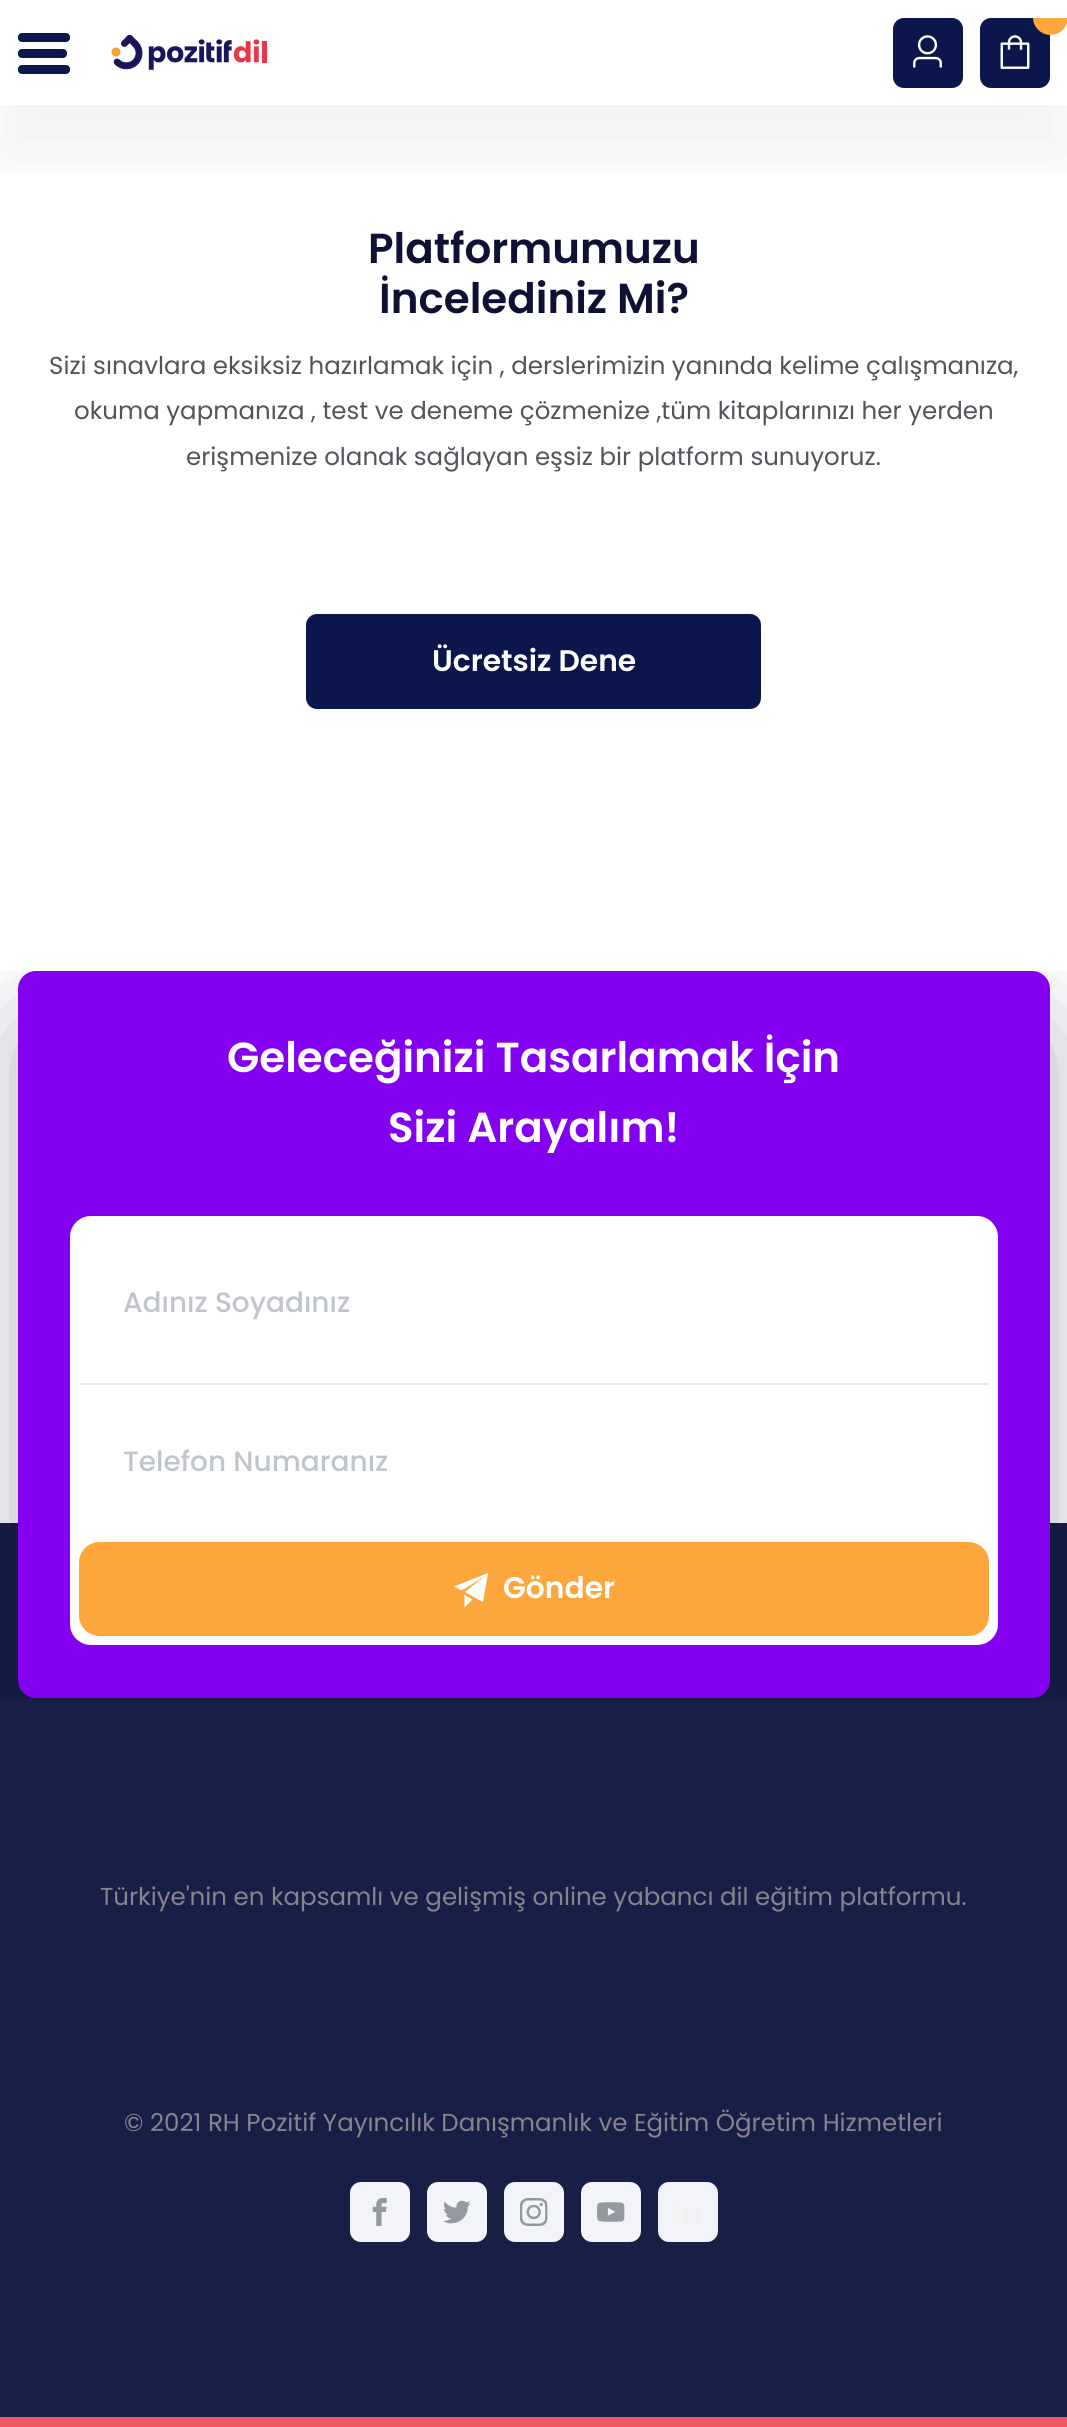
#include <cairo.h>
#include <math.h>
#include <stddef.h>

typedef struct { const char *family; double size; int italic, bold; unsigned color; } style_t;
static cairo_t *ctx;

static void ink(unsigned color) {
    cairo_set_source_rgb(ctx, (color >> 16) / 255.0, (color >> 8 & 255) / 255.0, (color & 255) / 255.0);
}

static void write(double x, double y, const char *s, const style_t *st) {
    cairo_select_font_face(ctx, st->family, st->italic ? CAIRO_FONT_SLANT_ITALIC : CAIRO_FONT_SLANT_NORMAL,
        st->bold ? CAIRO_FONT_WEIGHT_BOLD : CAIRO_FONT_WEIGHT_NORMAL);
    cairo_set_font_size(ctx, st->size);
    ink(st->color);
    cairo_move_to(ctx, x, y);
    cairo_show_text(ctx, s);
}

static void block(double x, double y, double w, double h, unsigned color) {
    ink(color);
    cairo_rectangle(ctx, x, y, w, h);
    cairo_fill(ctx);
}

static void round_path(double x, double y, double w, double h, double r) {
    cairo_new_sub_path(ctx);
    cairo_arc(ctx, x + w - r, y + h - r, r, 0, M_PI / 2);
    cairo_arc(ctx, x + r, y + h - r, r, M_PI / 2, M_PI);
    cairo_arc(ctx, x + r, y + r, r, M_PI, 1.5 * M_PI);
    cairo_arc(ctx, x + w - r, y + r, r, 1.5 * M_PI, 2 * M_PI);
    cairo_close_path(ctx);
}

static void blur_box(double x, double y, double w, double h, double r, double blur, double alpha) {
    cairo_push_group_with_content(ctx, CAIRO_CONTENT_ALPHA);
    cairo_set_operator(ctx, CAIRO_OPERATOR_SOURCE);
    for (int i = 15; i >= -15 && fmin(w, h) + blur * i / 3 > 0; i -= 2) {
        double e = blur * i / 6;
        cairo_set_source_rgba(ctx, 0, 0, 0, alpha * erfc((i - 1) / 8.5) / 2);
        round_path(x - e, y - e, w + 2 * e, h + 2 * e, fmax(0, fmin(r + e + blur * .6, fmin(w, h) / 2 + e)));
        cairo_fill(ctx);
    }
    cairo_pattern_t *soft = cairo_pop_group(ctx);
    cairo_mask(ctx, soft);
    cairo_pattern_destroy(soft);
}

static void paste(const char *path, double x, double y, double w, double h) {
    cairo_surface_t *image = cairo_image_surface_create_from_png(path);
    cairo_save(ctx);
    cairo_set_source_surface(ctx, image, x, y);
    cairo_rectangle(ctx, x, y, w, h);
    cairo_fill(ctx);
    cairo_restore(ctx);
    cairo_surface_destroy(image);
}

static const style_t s1 = {"Poppins SemiBold", 42, 0, 0, 0x0e1133};
static const style_t s2 = {"Poppins", 24.5, 0, 0, 0x53545b};
static const style_t s3 = {"Poppins SemiBold", 29.75, 0, 0, 0xffffff};
static const style_t s4 = {"Poppins SemiBold", 42, 0, 0, 0xffffff};
static const style_t s5 = {"Poppins Medium", 28, 0, 0, 0xc0c4cc};
static const style_t s6 = {"Poppins", 24.5, 0, 0, 0x88848c};

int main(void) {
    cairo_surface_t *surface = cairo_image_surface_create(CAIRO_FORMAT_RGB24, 1067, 2427);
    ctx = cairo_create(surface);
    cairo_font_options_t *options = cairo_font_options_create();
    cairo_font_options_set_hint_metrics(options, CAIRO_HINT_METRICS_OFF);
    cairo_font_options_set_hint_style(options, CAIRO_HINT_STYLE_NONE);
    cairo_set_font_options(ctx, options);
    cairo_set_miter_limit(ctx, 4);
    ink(0xffffff);
    cairo_paint(ctx);
    cairo_save(ctx);
    cairo_rectangle(ctx, 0, 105, 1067, 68);
    cairo_clip(ctx);
    ink(0x010b3c);
    blur_box(0, 53, 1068, 105, 0, 35, 0.06);
    cairo_restore(ctx);
    ink(0x0b164d);
    round_path(18, 49, 49, 9, 4);
    cairo_fill(ctx);
    round_path(18, 33, 52, 9, 4);
    cairo_fill(ctx);
    round_path(18, 65, 52, 9, 4);
    cairo_fill(ctx);
    paste("pic1.png", 111, 34, 156, 36);
    round_path(893, 18, 70, 70, 11);
    cairo_fill(ctx);
    paste("pic2.png", 913, 35, 29, 33);
    round_path(980, 18, 70, 70, 11);
    cairo_fill(ctx);
    ink(0xfda63c);
    cairo_new_path(ctx);
    cairo_move_to(ctx, 1033, 18);
    cairo_line_to(ctx, 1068, 18);
    cairo_line_to(ctx, 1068, 17.5);
    cairo_curve_to(ctx, 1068, 27, 1060, 35, 1050.5, 35);
    cairo_curve_to(ctx, 1041, 35, 1033, 27, 1033, 17.5);
    cairo_close_path(ctx);
    cairo_fill(ctx);
    paste("pic3.png", 1000, 35, 30, 34);
    write(368, 263, "Platformumuzu", &s1);
    write(379, 313, "İncelediniz Mi?", &s1);
    write(49, 374, "Sizi sınavlara eksiksiz hazırlamak için , derslerimizin yanında kelime çalışmanıza,", &s2);
    write(74, 419, "okuma yapmanıza , test ve deneme çözmenize ,tüm kitaplarınızı her yerden", &s2);
    write(186, 465, "erişmenize olanak sağlayan eşsiz bir platform sunuyoruz.", &s2);
    ink(0x0b164d);
    round_path(308, 616, 451, 91, 9);
    cairo_fill_preserve(ctx);
    cairo_set_line_width(ctx, 4);
    cairo_stroke(ctx);
    write(432, 671, "Ücretsiz Dene", &s3);
    block(0, 2417, 1067, 10, 0xef5665);
    block(0, 1523, 1067, 894, 0x181f47);
    cairo_save(ctx);
    cairo_rectangle(ctx, 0, 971, 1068, 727);
    cairo_clip(ctx);
    ink(0x000430);
    blur_box(18, 1024, 1032, 726, 18, 52.5, 0.3);
    cairo_restore(ctx);
    ink(0x8300f1);
    round_path(18, 971, 1032, 727, 18);
    cairo_fill(ctx);
    write(227, 1072, "Geleceğinizi Tasarlamak İçin", &s4);
    write(388, 1142, "Sizi Arayalım!", &s4);
    round_path(70, 1216, 928, 429, 21);
    cairo_fill(ctx);
    block(79, 1383, 910, 2, 0xe6e6e6);
    write(123, 1312, "Adınız Soyadınız", &s5);
    write(123, 1471, "Telefon Numaranız", &s5);
    ink(0xfda63c);
    cairo_new_path(ctx);
    cairo_move_to(ctx, 100, 1542);
    cairo_line_to(ctx, 968, 1542);
    cairo_curve_to(ctx, 980, 1542, 989, 1551, 989, 1563);
    cairo_line_to(ctx, 989, 1615);
    cairo_curve_to(ctx, 989, 1627, 980, 1636, 968, 1636);
    cairo_line_to(ctx, 100, 1636);
    cairo_curve_to(ctx, 88, 1636, 79, 1627, 79, 1615);
    cairo_line_to(ctx, 79, 1563);
    cairo_curve_to(ctx, 79, 1551, 88, 1542, 100, 1542);
    cairo_close_path(ctx);
    cairo_fill(ctx);
    ink(0xffffff);
    cairo_new_path(ctx);
    cairo_move_to(ctx, 454, 1586.5);
    cairo_line_to(ctx, 488, 1573);
    cairo_line_to(ctx, 483, 1602);
    cairo_line_to(ctx, 464.5, 1592);
    cairo_line_to(ctx, 485.5, 1576);
    cairo_line_to(ctx, 461.5, 1590.5);
    cairo_close_path(ctx);
    cairo_move_to(ctx, 464.5, 1607.5);
    cairo_line_to(ctx, 464.5, 1595);
    cairo_line_to(ctx, 472.5, 1599.5);
    cairo_close_path(ctx);
    cairo_fill(ctx);
    write(503, 1598, "Gönder", &s3);
    write(100, 1905, "Türkiye'nin en kapsamlı ve gelişmiş online yabancı dil eğitim platformu.", &s6);
    block(0, 2062, 1067, 2, 0x1c1f3f);
    write(124, 2131, "© 2021 RH Pozitif Yayıncılık Danışmanlık ve Eğitim Öğretim Hizmetleri", &s6);
    ink(0xf3f4fa);
    round_path(350, 2182, 60, 60, 11);
    cairo_fill(ctx);
    paste("pic4.png", 372, 2198, 15, 28);
    round_path(427, 2182, 60, 60, 11);
    cairo_fill(ctx);
    paste("pic5.png", 443, 2200, 28, 24);
    round_path(504, 2182, 60, 60, 11);
    cairo_fill(ctx);
    paste("pic6.png", 520, 2198, 28, 28);
    round_path(581, 2182, 60, 60, 11);
    cairo_fill(ctx);
    paste("pic7.png", 597, 2202, 28, 20);
    round_path(658, 2182, 60, 60, 11);
    cairo_fill(ctx);
    paste("pic8.png", 674, 2199, 27, 27);
    cairo_surface_write_to_png(surface, "screenshot.png");
    cairo_font_options_destroy(options);
    cairo_destroy(ctx);
    cairo_surface_destroy(surface);
    return 0;
}
